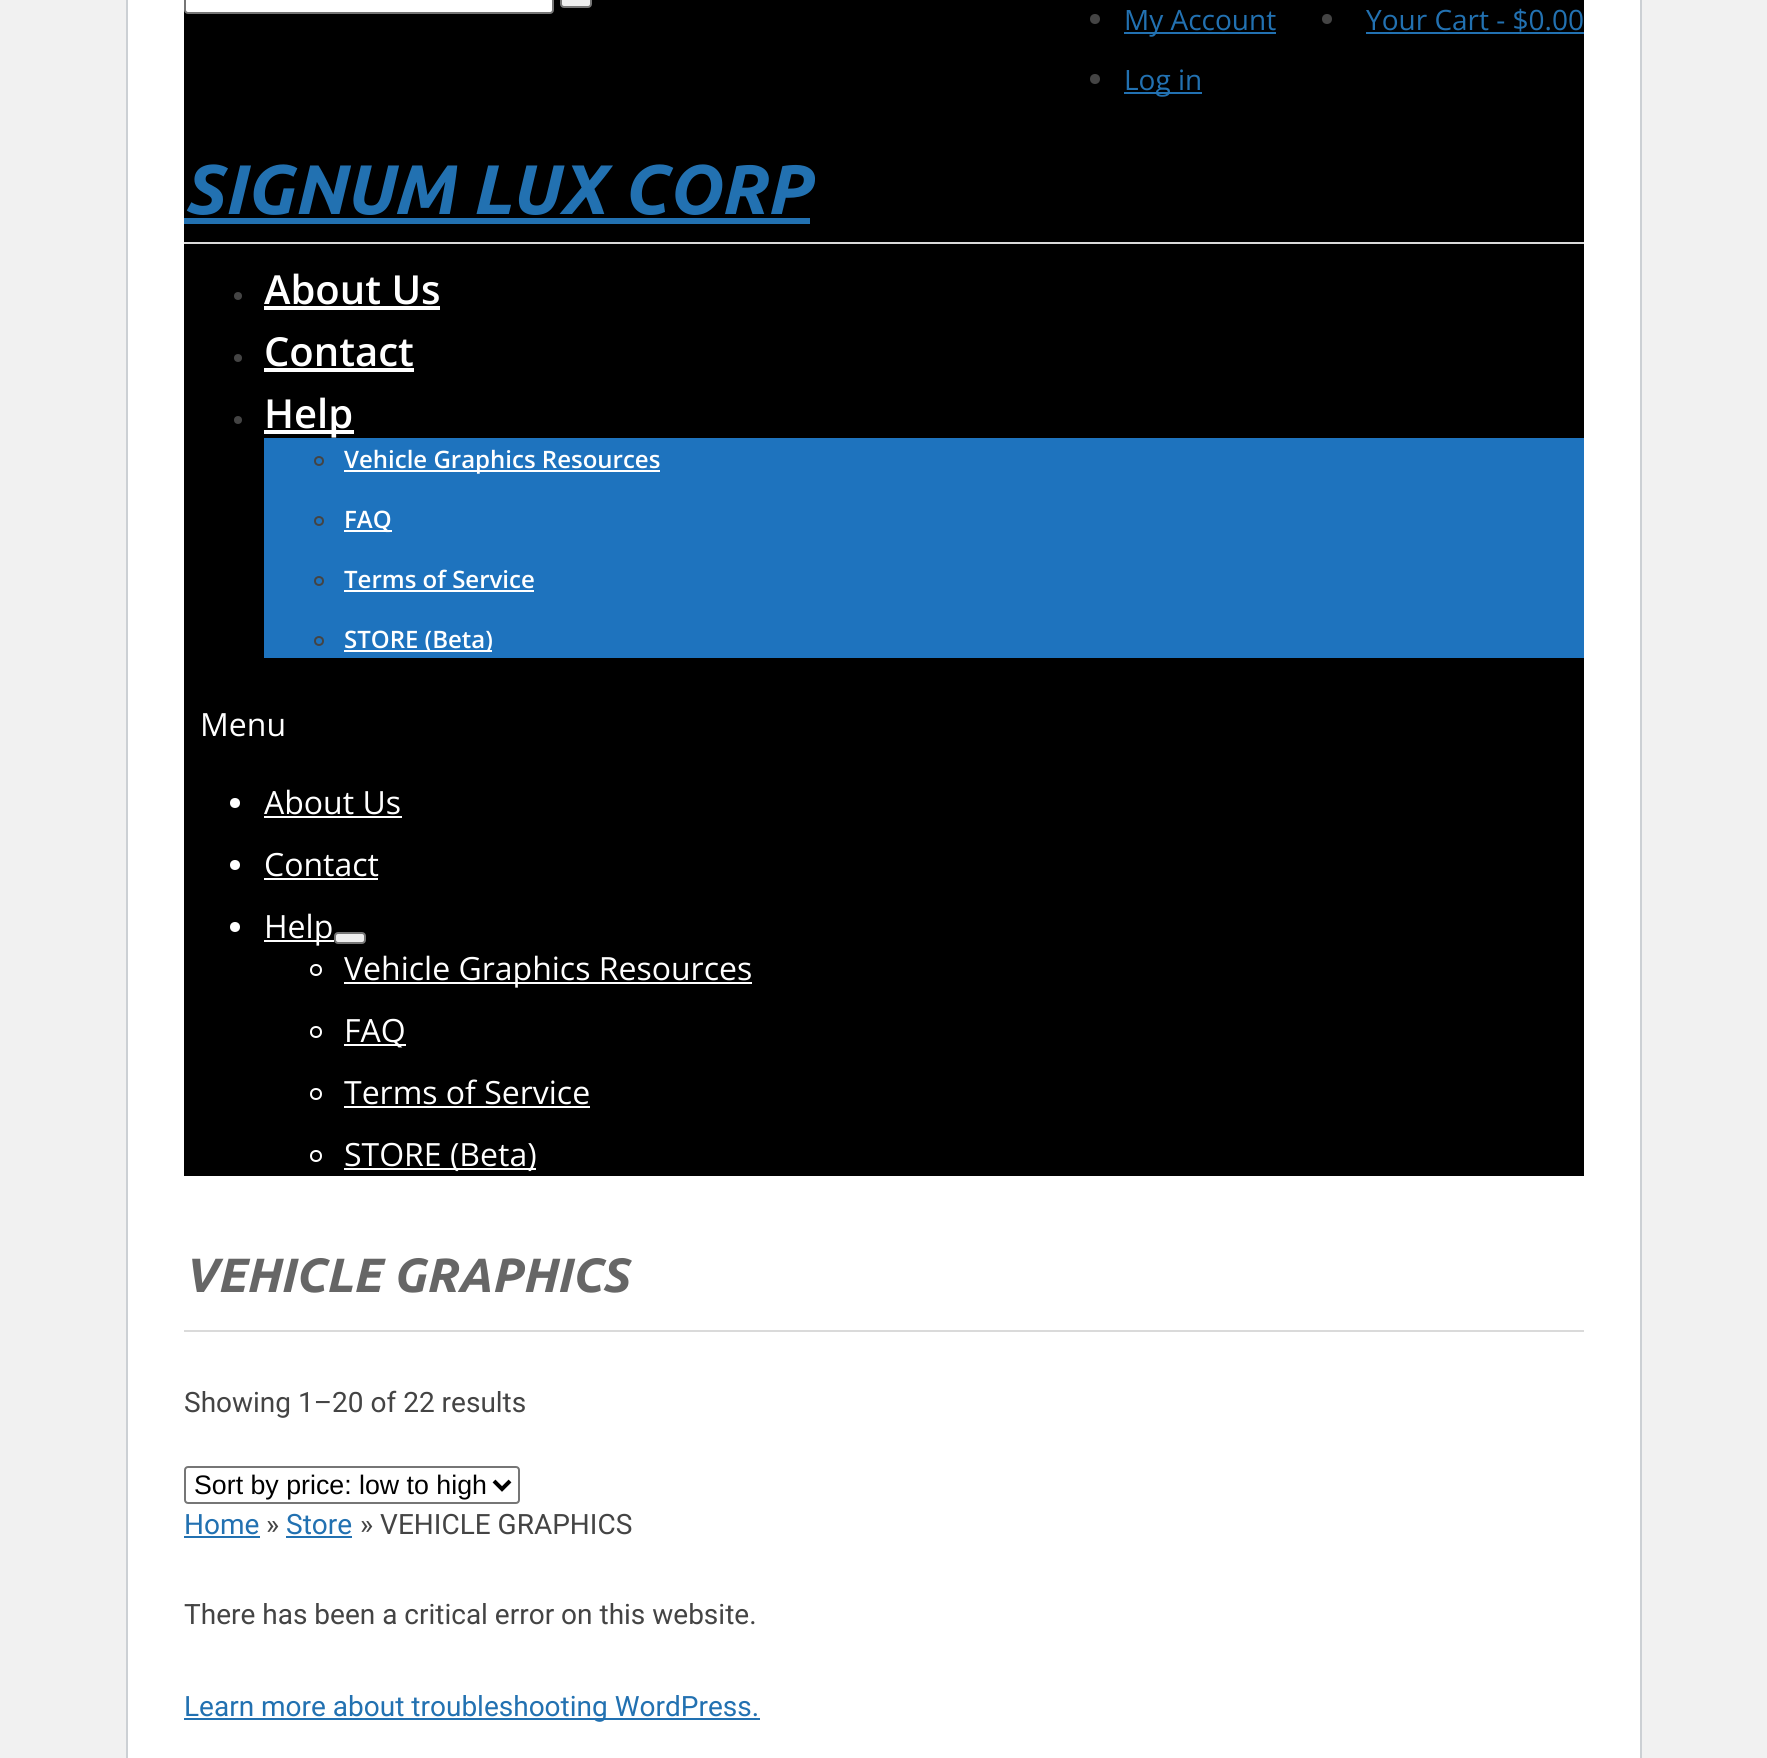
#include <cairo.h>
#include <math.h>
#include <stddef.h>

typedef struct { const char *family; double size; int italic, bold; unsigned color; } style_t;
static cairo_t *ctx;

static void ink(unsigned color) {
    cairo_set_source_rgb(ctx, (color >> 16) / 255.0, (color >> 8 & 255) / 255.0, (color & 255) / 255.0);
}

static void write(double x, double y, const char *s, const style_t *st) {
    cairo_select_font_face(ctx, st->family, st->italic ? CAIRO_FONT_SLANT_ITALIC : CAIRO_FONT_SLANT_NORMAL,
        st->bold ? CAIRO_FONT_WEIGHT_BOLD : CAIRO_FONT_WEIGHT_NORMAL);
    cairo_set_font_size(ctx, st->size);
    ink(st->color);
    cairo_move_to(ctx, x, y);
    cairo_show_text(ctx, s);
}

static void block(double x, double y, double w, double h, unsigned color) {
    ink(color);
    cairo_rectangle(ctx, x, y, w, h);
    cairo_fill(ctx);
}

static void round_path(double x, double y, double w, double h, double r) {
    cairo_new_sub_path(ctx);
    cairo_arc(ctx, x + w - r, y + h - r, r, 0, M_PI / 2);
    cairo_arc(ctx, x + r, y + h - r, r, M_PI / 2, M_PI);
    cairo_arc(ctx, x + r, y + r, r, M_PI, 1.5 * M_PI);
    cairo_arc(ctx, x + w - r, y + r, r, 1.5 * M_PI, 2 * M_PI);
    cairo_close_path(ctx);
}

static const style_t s1 = {"Open Sans", 28, 0, 0, 0x2271b1};
static const style_t s2 = {"Ubuntu", 70, 1, 1, 0x2271b1};
static const style_t s3 = {"Open Sans SemiBold", 40, 0, 0, 0xffffff};
static const style_t s4 = {"Open Sans SemiBold", 24, 0, 0, 0xffffff};
static const style_t s5 = {"Open Sans", 32, 0, 0, 0xffffff};
static const style_t s6 = {"Ubuntu", 48, 1, 1, 0x666666};
static const style_t s7 = {"Roboto", 28, 0, 0, 0x444444};
static const style_t s8 = {"Liberation Sans", 26.75, 0, 0, 0x000000};
static const style_t s9 = {"Roboto", 28, 0, 0, 0x2271b1};

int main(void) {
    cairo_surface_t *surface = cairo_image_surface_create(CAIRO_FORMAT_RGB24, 1767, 1758);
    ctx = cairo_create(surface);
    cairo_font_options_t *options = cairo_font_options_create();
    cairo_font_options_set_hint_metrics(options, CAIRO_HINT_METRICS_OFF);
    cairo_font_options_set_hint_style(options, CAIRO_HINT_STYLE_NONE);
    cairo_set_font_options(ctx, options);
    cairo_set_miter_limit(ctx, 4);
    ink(0xf1f1f1);
    cairo_paint(ctx);
    ink(0xffffff);
    cairo_rectangle(ctx, 127, -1, 1514, 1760);
    cairo_fill_preserve(ctx);
    ink(0xccd0d4);
    cairo_stroke(ctx);
    block(184, 0, 1400, 1176, 0x000000);
    ink(0xffffff);
    round_path(185, -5, 368, 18, 3);
    cairo_fill_preserve(ctx);
    ink(0x767676);
    cairo_stroke(ctx);
    ink(0xefefef);
    round_path(561, -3, 30, 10, 3);
    cairo_fill_preserve(ctx);
    ink(0x767676);
    cairo_stroke(ctx);
    ink(0x444444);
    cairo_arc(ctx, 1095, 19, 5, 0, 2 * M_PI);
    cairo_fill(ctx);
    block(1124, 32, 152, 2, 0x2271b1);
    write(1124, 30, "My Account", &s1);
    ink(0x444444);
    cairo_new_path(ctx);
    cairo_arc(ctx, 1095, 79, 5, 0, 2 * M_PI);
    cairo_fill(ctx);
    block(1124, 92, 78, 2, 0x2271b1);
    write(1124, 90, "Log in", &s1);
    ink(0x444444);
    cairo_new_path(ctx);
    cairo_arc(ctx, 1327, 19, 5, 0, 2 * M_PI);
    cairo_fill(ctx);
    write(1366, 30, "Your Cart - $0.00", &s1);
    block(1366, 32, 218, 2, 0x2271b1);
    block(184, 242, 1400, 2, 0xdadada);
    write(184, 214, "SIGNUM LUX CORP", &s2);
    block(184, 218, 626, 6, 0x2271b1);
    ink(0x444444);
    cairo_new_path(ctx);
    cairo_arc(ctx, 238, 296, 4, 0, 2 * M_PI);
    cairo_fill(ctx);
    write(264, 304, "About Us", &s3);
    block(264, 306, 176, 4, 0xffffff);
    ink(0x444444);
    cairo_new_path(ctx);
    cairo_arc(ctx, 238, 358, 4, 0, 2 * M_PI);
    cairo_fill(ctx);
    write(264, 366, "Contact", &s3);
    block(264, 368, 150, 4, 0xffffff);
    ink(0x444444);
    cairo_new_path(ctx);
    cairo_arc(ctx, 238, 420, 4, 0, 2 * M_PI);
    cairo_fill(ctx);
    block(264, 430, 90, 4, 0xffffff);
    write(264, 428, "Help", &s3);
    block(264, 438, 1320, 220, 0x1e73be);
    cairo_new_path(ctx);
    cairo_arc(ctx, 319, 461, 4, 0, 2 * M_PI);
    ink(0x444444);
    cairo_stroke(ctx);
    block(344, 470, 316, 2, 0xffffff);
    write(344, 468, "Vehicle Graphics Resources", &s4);
    cairo_new_path(ctx);
    cairo_arc(ctx, 319, 521, 4, 0, 2 * M_PI);
    ink(0x444444);
    cairo_stroke(ctx);
    block(344, 530, 48, 2, 0xffffff);
    write(344, 528, "FAQ", &s4);
    cairo_new_path(ctx);
    cairo_arc(ctx, 319, 581, 4, 0, 2 * M_PI);
    ink(0x444444);
    cairo_stroke(ctx);
    write(344, 588, "Terms of Service", &s4);
    block(344, 590, 190, 2, 0xffffff);
    cairo_new_path(ctx);
    cairo_arc(ctx, 319, 641, 4, 0, 2 * M_PI);
    ink(0x444444);
    cairo_stroke(ctx);
    block(344, 650, 148, 2, 0xffffff);
    write(344, 648, "STORE (Beta)", &s4);
    write(200, 736, "Menu", &s5);
    cairo_new_path(ctx);
    cairo_arc(ctx, 235, 803, 5, 0, 2 * M_PI);
    cairo_fill(ctx);
    write(264, 814, "About Us", &s5);
    block(264, 816, 138, 2, 0xffffff);
    cairo_new_path(ctx);
    cairo_arc(ctx, 235, 865, 5, 0, 2 * M_PI);
    cairo_fill(ctx);
    write(264, 876, "Contact", &s5);
    block(264, 878, 114, 2, 0xffffff);
    cairo_new_path(ctx);
    cairo_arc(ctx, 235, 927, 5, 0, 2 * M_PI);
    cairo_fill(ctx);
    block(264, 940, 70, 2, 0xffffff);
    write(264, 938, "Help", &s5);
    ink(0xefefef);
    round_path(335, 933, 30, 10, 3);
    cairo_fill_preserve(ctx);
    ink(0x767676);
    cairo_stroke(ctx);
    cairo_arc(ctx, 316, 970, 5, 0, 2 * M_PI);
    ink(0xffffff);
    cairo_stroke(ctx);
    block(344, 982, 408, 2, 0xffffff);
    write(344, 980, "Vehicle Graphics Resources", &s5);
    cairo_new_path(ctx);
    cairo_arc(ctx, 316, 1032, 5, 0, 2 * M_PI);
    cairo_stroke(ctx);
    block(344, 1044, 62, 2, 0xffffff);
    write(344, 1042, "FAQ", &s5);
    cairo_new_path(ctx);
    cairo_arc(ctx, 316, 1094, 5, 0, 2 * M_PI);
    cairo_stroke(ctx);
    write(344, 1104, "Terms of Service", &s5);
    block(344, 1106, 246, 2, 0xffffff);
    cairo_new_path(ctx);
    cairo_arc(ctx, 316, 1156, 5, 0, 2 * M_PI);
    cairo_stroke(ctx);
    block(344, 1168, 192, 2, 0xffffff);
    write(344, 1166, "STORE (Beta)", &s5);
    block(184, 1330, 1400, 2, 0xdadada);
    write(184, 1292, "VEHICLE GRAPHICS", &s6);
    write(184, 1412, "Showing 1–20 of 22 results", &s7);
    round_path(185, 1467, 334, 36, 3);
    ink(0x767676);
    cairo_stroke(ctx);
    cairo_new_path(ctx);
    cairo_move_to(ctx, 494, 1481);
    cairo_line_to(ctx, 502, 1489);
    cairo_line_to(ctx, 510, 1481);
    ink(0x000000);
    cairo_set_line_width(ctx, 4);
    cairo_stroke(ctx);
    write(194, 1494, "Sort by price: low to high", &s8);
    write(184, 1534, "Home", &s9);
    block(184, 1536, 76, 2, 0x2271b1);
    write(266, 1534, "»", &s7);
    write(286, 1534, "Store", &s9);
    block(286, 1536, 66, 2, 0x2271b1);
    write(360, 1534, "» VEHICLE GRAPHICS", &s7);
    write(184, 1624, "There has been a critical error on this website.", &s7);
    block(184, 1718, 576, 2, 0x2271b1);
    write(184, 1716, "Learn more about troubleshooting WordPress.", &s9);
    cairo_surface_write_to_png(surface, "screenshot.png");
    cairo_font_options_destroy(options);
    cairo_destroy(ctx);
    cairo_surface_destroy(surface);
    return 0;
}
